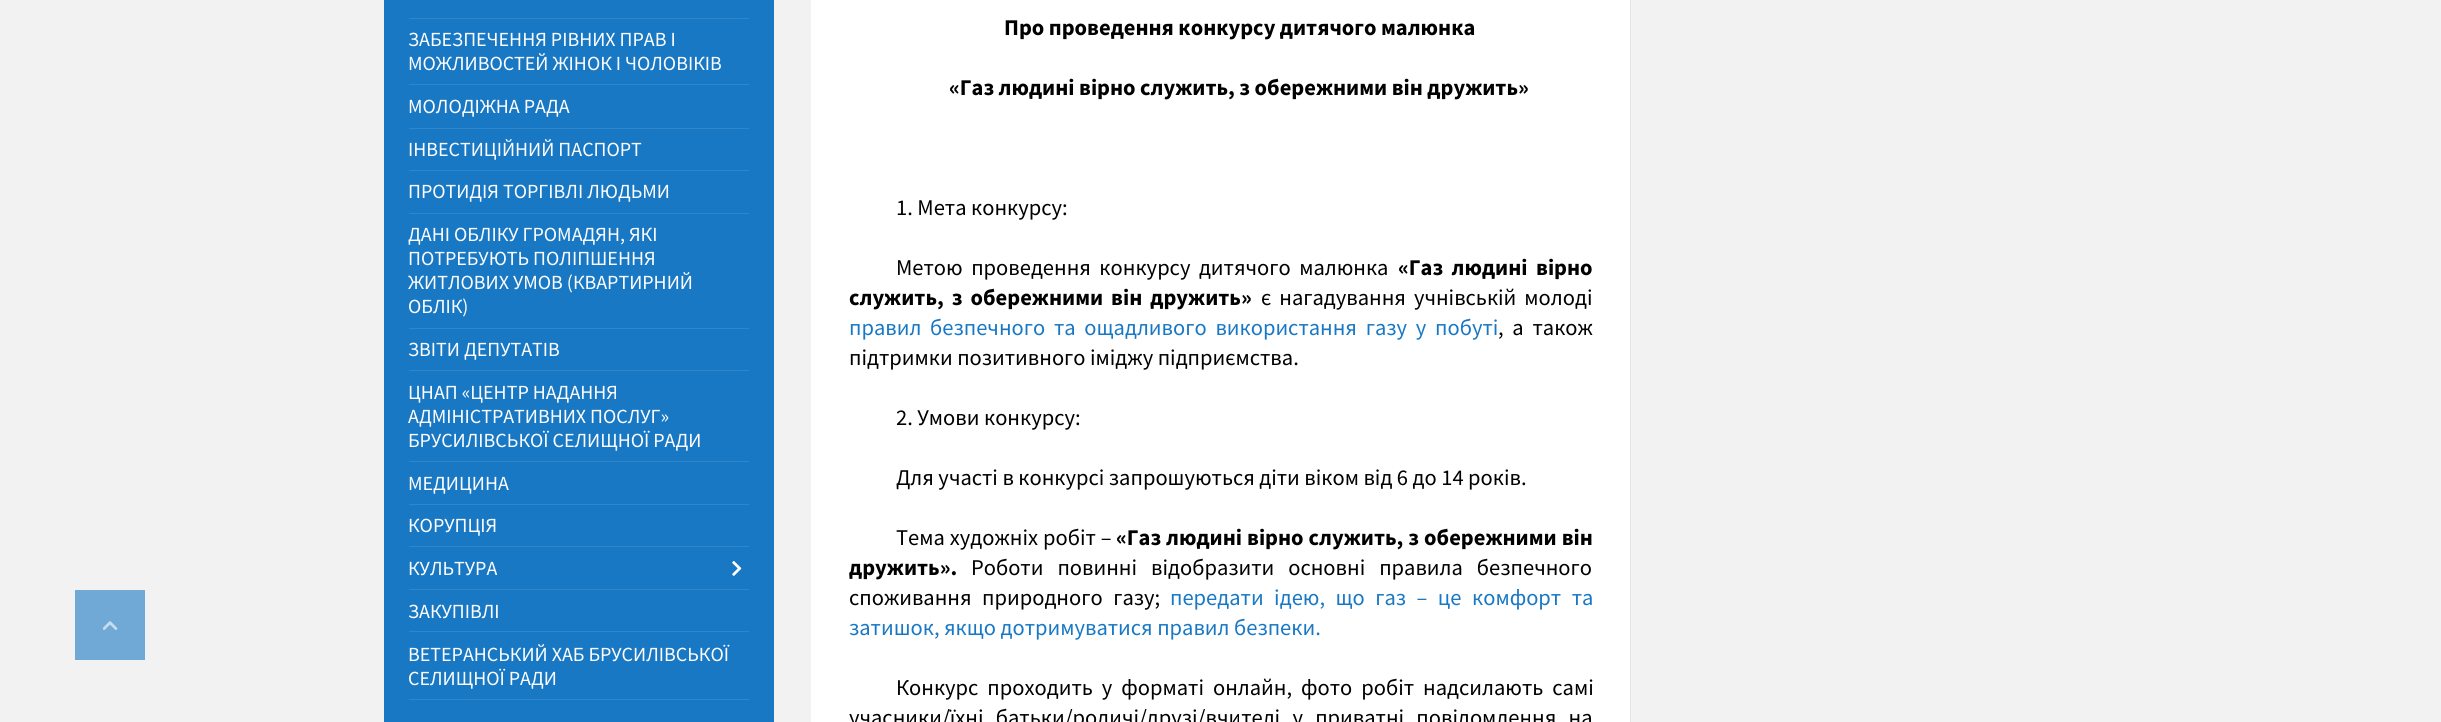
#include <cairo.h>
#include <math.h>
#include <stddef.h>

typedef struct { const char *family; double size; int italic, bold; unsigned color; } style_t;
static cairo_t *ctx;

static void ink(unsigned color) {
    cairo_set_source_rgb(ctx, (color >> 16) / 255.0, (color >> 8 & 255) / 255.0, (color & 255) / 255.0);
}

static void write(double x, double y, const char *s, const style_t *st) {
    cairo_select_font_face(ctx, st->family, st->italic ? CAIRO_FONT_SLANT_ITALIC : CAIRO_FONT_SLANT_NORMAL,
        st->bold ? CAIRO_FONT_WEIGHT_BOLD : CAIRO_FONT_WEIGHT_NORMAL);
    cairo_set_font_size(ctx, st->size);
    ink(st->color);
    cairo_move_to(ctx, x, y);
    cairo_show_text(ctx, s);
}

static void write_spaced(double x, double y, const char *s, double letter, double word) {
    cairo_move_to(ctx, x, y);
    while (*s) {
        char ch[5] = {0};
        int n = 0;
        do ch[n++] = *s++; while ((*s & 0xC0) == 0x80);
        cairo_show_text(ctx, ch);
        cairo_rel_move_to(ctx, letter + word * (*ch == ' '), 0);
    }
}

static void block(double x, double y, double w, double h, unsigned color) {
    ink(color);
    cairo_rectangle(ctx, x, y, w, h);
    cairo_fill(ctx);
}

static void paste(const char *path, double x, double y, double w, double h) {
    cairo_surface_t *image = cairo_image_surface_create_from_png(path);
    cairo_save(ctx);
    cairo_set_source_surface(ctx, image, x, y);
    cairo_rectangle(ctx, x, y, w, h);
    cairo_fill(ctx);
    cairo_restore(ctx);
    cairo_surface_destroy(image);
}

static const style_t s1 = {"Source Sans Pro", 20, 0, 0, 0xffffff};
static const style_t s2 = {"Source Sans Pro", 22.5, 0, 1, 0x000000};
static const style_t s3 = {"Source Sans Pro", 22.5, 0, 0, 0x000000};
static const style_t s4 = {"Source Sans Pro", 22.5, 0, 0, 0x1978c4};

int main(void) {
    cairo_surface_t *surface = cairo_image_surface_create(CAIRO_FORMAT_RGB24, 2441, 722);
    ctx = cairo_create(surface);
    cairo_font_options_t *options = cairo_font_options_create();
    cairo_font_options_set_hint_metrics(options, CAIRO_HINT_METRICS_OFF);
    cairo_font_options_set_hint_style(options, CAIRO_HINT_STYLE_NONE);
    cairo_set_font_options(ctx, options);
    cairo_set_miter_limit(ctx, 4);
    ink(0xf2f2f2);
    cairo_paint(ctx);
    block(75, 590, 70, 70, 0x70a9d6);
    paste("pic1.png", 103, 621, 15, 9);
    block(384, 0, 390, 722, 0x1978c4);
    block(409, 18, 340, 1, 0x3086ca);
    write(408, 46, "ЗАБЕЗПЕЧЕННЯ РІВНИХ ПРАВ І", &s1);
    write(408, 70, "МОЖЛИВОСТЕЙ ЖІНОК І ЧОЛОВІКІВ", &s1);
    block(409, 84, 340, 1, 0x3086ca);
    write(408, 113, "МОЛОДІЖНА РАДА", &s1);
    block(409, 128, 340, 1, 0x3086ca);
    write(408, 156, "ІНВЕСТИЦІЙНИЙ ПАСПОРТ", &s1);
    block(409, 170, 340, 1, 0x3086ca);
    write(408, 198, "ПРОТИДІЯ ТОРГІВЛІ ЛЮДЬМИ", &s1);
    block(409, 213, 340, 1, 0x3086ca);
    write(408, 241, "ДАНІ ОБЛІКУ ГРОМАДЯН, ЯКІ", &s1);
    write(408, 265, "ПОТРЕБУЮТЬ ПОЛІПШЕННЯ", &s1);
    write(408, 289, "ЖИТЛОВИХ УМОВ (КВАРТИРНИЙ", &s1);
    write(408, 313, "ОБЛІК)", &s1);
    block(409, 328, 340, 1, 0x3086ca);
    write(408, 356, "ЗВІТИ ДЕПУТАТІВ", &s1);
    block(409, 370, 340, 1, 0x3086ca);
    write(408, 399, "ЦНАП «ЦЕНТР НАДАННЯ", &s1);
    write(408, 423, "АДМІНІСТРАТИВНИХ ПОСЛУГ»", &s1);
    write(408, 447, "БРУСИЛІВСЬКОЇ СЕЛИЩНОЇ РАДИ", &s1);
    block(409, 461, 340, 1, 0x3086ca);
    write(408, 490, "МЕДИЦИНА", &s1);
    block(409, 504, 340, 1, 0x3086ca);
    write(408, 532, "КОРУПЦІЯ", &s1);
    block(409, 546, 340, 1, 0x3086ca);
    write(408, 575, "КУЛЬТУРА", &s1);
    paste("pic2.png", 732, 561, 10, 15);
    block(409, 589, 340, 1, 0x3086ca);
    write(408, 618, "ЗАКУПІВЛІ", &s1);
    block(409, 631, 340, 1, 0x3086ca);
    write(408, 661, "ВЕТЕРАНСЬКИЙ ХАБ БРУСИЛІВСЬКОЇ", &s1);
    write(408, 685, "СЕЛИЩНОЇ РАДИ", &s1);
    block(409, 699, 340, 1, 0x3086ca);
    ink(0xe6e6e6);
    cairo_new_path(ctx);
    cairo_move_to(ctx, 813, 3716);
    cairo_line_to(ctx, 813, 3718);
    cairo_line_to(ctx, 1631, 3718);
    cairo_line_to(ctx, 1631, -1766);
    cairo_line_to(ctx, 1630, -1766);
    cairo_line_to(ctx, 1630, 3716);
    cairo_close_path(ctx);
    cairo_fill(ctx);
    block(811, 0, 819, 722, 0xffffff);
    write(1004, 35, "Про проведення конкурсу дитячого малюнка", &s2);
    write(949, 95, "«Газ людині вірно служить, з обережними він дружить»", &s2);
    write(896, 215, "1. Мета конкурсу:", &s3);
    write_spaced(896, 275, "Метою проведення конкурсу дитячого малюнка", 0, 4);
    cairo_select_font_face(ctx, "Source Sans Pro", CAIRO_FONT_SLANT_NORMAL, CAIRO_FONT_WEIGHT_BOLD);
    write_spaced(1398, 275, "«Газ людині вірно", 0, 4);
    write_spaced(849, 305, "служить, з обережними він дружить»", 0, 3.5);
    cairo_select_font_face(ctx, "Source Sans Pro", CAIRO_FONT_SLANT_NORMAL, CAIRO_FONT_WEIGHT_NORMAL);
    write_spaced(1261, 305, "є нагадування учнівській молоді", 0, 3.5);
    ink(0x1978c4);
    write_spaced(849, 335, "правил безпечного та ощадливого використання газу у побуті", 0, 4.25);
    ink(0x000000);
    write_spaced(1498, 335, ", а також", 0, 4.25);
    write(849, 365, "підтримки позитивного іміджу підприємства.", &s3);
    write(896, 425, "2. Умови конкурсу:", &s3);
    write(896, 485, "Для участі в конкурсі запрошуються діти віком від 6 до 14 років.", &s3);
    write_spaced(896, 545, "Тема художніх робіт –", 0, 0.5);
    cairo_select_font_face(ctx, "Source Sans Pro", CAIRO_FONT_SLANT_NORMAL, CAIRO_FONT_WEIGHT_BOLD);
    write_spaced(1116, 545, "«Газ людині вірно служить, з обережними він", 0, 0.5);
    write(849, 575, "дружить».", &s2);
    cairo_select_font_face(ctx, "Source Sans Pro", CAIRO_FONT_SLANT_NORMAL, CAIRO_FONT_WEIGHT_NORMAL);
    write_spaced(971, 575, "Роботи повинні відобразити основні правила безпечного", 0, 9.5);
    write_spaced(849, 605, "споживання природного газу;", 0, 6);
    ink(0x1978c4);
    write_spaced(1170, 605, "передати ідею, що газ – це комфорт та", 0, 6);
    write(849, 635, "затишок, якщо дотримуватися правил безпеки.", &s4);
    ink(0x000000);
    write_spaced(896, 695, "Конкурс проходить у форматі онлайн, фото робіт надсилають самі", 0, 4.5);
    write_spaced(849, 725, "учасники/їхні батьки/родичі/друзі/вчителі у приватні повідомлення на", 0, 7.75);
    cairo_surface_write_to_png(surface, "screenshot.png");
    cairo_font_options_destroy(options);
    cairo_destroy(ctx);
    cairo_surface_destroy(surface);
    return 0;
}
